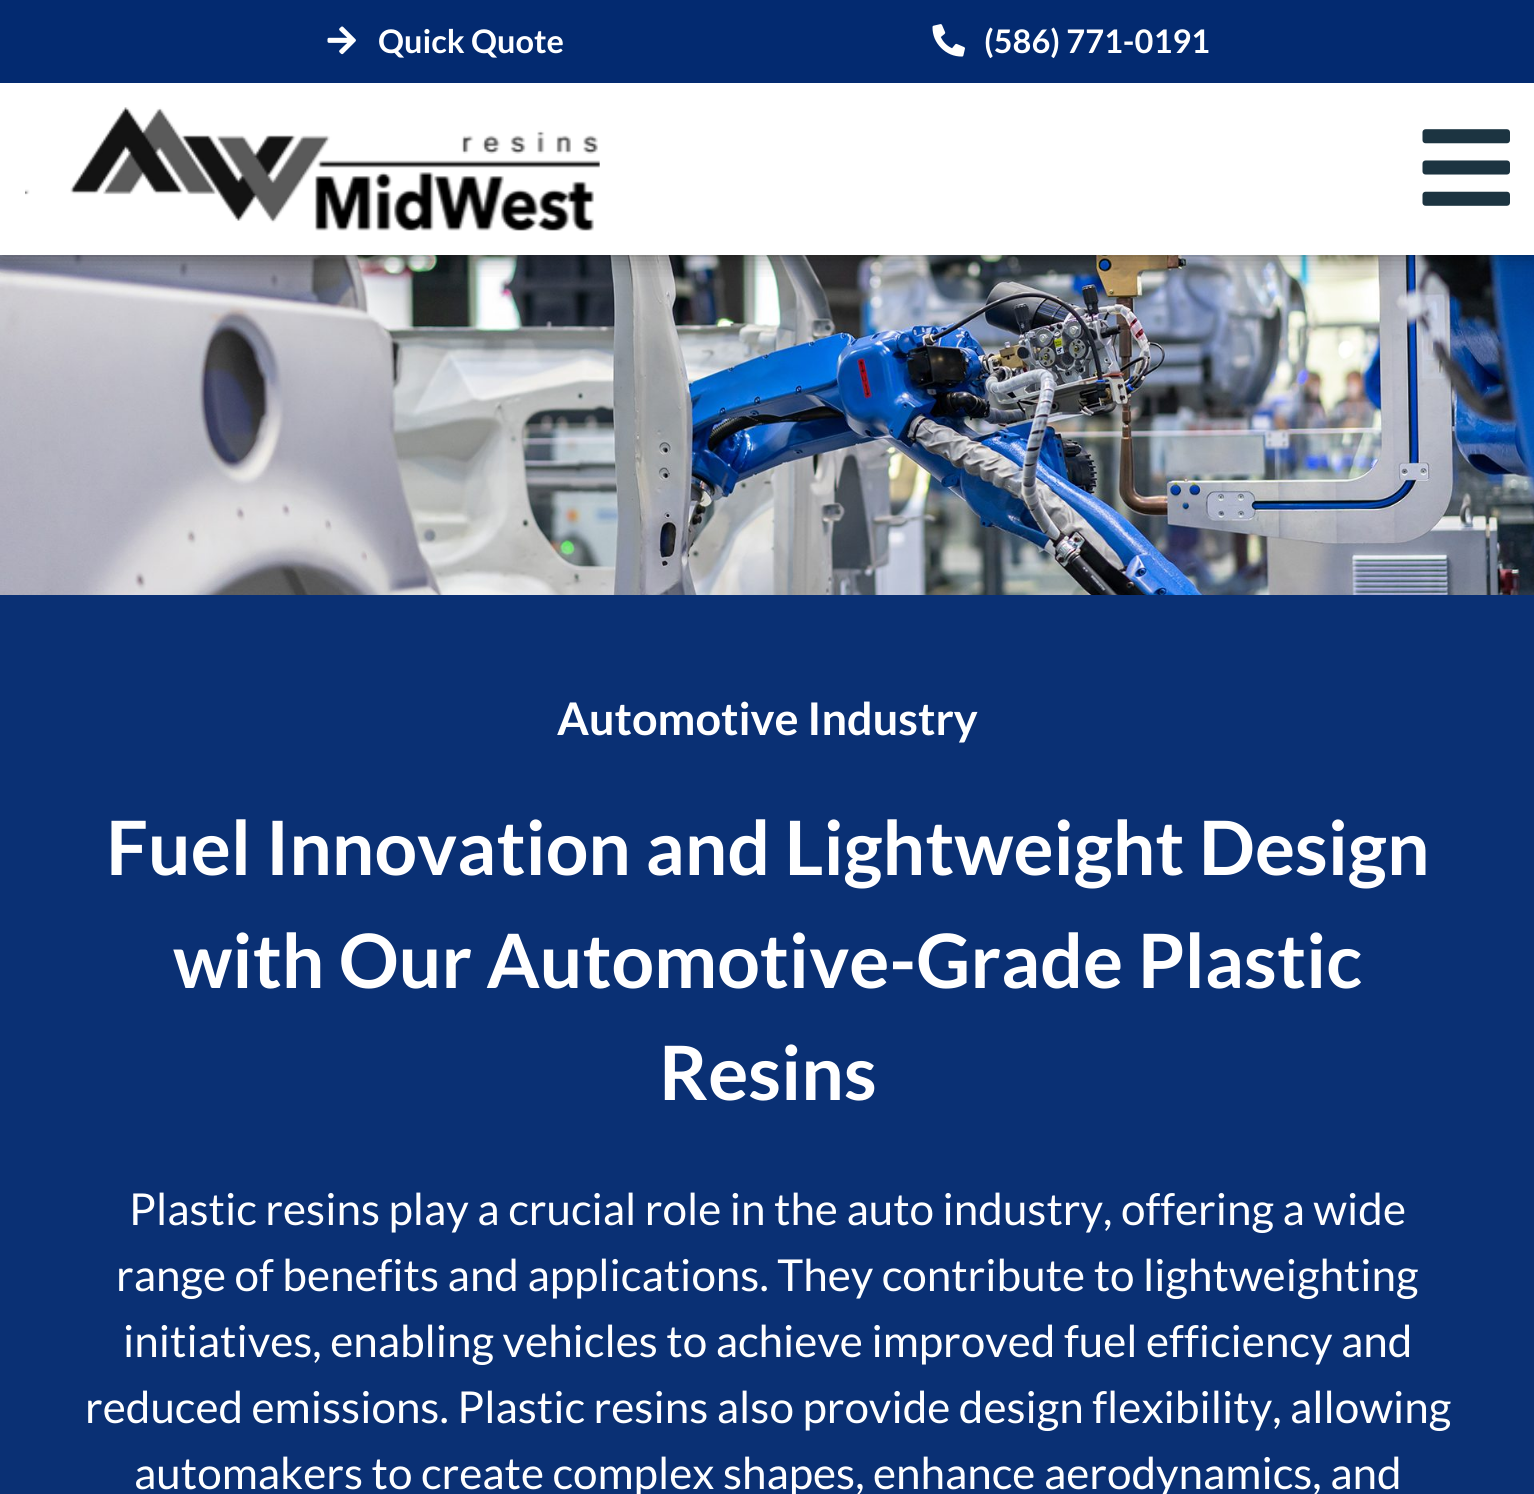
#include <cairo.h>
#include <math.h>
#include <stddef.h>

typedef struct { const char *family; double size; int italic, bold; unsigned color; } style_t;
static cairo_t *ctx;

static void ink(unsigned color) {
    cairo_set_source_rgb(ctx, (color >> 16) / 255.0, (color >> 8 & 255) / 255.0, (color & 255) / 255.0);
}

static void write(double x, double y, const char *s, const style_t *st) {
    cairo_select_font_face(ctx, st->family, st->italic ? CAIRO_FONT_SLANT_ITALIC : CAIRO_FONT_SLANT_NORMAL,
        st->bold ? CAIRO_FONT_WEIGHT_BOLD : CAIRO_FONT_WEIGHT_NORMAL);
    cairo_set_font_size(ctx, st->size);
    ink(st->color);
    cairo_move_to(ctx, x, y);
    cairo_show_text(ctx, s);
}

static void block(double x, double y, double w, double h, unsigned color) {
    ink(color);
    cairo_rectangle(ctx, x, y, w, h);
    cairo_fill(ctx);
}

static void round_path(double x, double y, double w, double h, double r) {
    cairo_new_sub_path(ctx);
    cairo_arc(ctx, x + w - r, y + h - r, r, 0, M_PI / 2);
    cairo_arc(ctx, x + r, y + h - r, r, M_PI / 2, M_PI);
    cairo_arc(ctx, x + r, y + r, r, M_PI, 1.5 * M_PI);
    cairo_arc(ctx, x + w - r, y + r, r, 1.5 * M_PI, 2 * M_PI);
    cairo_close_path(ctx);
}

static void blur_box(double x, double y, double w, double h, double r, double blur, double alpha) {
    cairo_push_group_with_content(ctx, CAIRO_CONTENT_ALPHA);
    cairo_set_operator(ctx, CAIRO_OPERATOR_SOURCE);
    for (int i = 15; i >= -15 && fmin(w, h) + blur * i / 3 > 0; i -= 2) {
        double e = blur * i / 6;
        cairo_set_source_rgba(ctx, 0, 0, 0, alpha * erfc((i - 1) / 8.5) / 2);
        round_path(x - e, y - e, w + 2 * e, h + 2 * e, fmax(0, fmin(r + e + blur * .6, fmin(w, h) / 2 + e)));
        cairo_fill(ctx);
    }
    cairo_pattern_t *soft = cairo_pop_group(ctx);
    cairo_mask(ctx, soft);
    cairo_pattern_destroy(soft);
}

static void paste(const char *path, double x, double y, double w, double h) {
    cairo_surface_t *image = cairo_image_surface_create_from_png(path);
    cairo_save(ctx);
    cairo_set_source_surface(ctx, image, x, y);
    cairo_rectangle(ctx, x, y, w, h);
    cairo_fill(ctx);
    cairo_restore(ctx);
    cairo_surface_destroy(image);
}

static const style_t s1 = {"Lato", 32.5, 0, 1, 0xffffff};
static const style_t s2 = {"Lato", 45, 0, 1, 0xffffff};
static const style_t s3 = {"Lato", 75, 0, 1, 0xffffff};
static const style_t s4 = {"Lato", 44, 0, 0, 0xffffff};

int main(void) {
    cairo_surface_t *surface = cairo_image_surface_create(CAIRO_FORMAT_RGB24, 1534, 1494);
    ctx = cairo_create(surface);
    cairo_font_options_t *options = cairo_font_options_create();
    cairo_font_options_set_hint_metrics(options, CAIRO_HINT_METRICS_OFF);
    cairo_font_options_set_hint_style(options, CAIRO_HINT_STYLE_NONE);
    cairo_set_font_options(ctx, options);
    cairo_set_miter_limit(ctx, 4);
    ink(0xffffff);
    cairo_paint(ctx);
    paste("pic5.png", 0, 255, 1534, 340);
    cairo_save(ctx);
    cairo_rectangle(ctx, 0, 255, 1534, 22);
    cairo_clip(ctx);
    ink(0x000000);
    blur_box(0, 0, 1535, 255, 0, 12.5, 0.5);
    cairo_restore(ctx);
    block(0, 0, 1534, 83, 0x032a70);
    paste("pic1.png", 327, 26, 29, 29);
    write(378, 53, "Quick Quote", &s1);
    paste("pic2.png", 932, 24, 33, 33);
    write(984, 53, "(586) 771-0191", &s1);
    paste("pic3.png", 25, 107, 575, 124);
    paste("pic4.png", 1422, 129, 88, 77);
    block(0, 595, 1534, 899, 0x0a3074);
    write(557, 735, "Automotive Industry", &s2);
    write(106, 875, "Fuel Innovation and Lightweight Design", &s3);
    write(173, 988, "with Our Automotive-Grade Plastic", &s3);
    write(659, 1100, "Resins", &s3);
    write(129, 1225, "Plastic resins play a crucial role in the auto industry, offering a wide", &s4);
    write(116, 1291, "range of benefits and applications. They contribute to lightweighting", &s4);
    write(123, 1357, "initiatives, enabling vehicles to achieve improved fuel efficiency and", &s4);
    write(85, 1423, "reduced emissions. Plastic resins also provide design flexibility, allowing", &s4);
    write(134, 1489, "automakers to create complex shapes, enhance aerodynamics, and", &s4);
    cairo_surface_write_to_png(surface, "screenshot.png");
    cairo_font_options_destroy(options);
    cairo_destroy(ctx);
    cairo_surface_destroy(surface);
    return 0;
}
